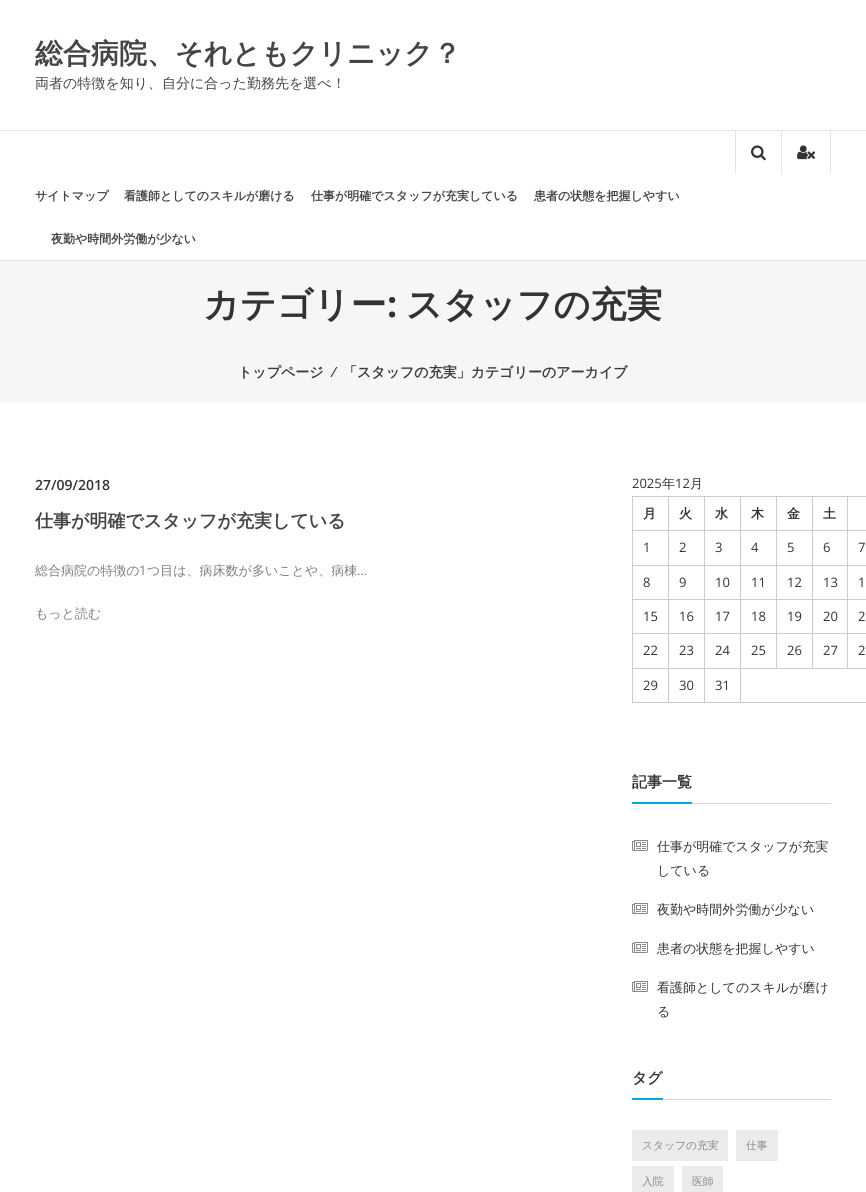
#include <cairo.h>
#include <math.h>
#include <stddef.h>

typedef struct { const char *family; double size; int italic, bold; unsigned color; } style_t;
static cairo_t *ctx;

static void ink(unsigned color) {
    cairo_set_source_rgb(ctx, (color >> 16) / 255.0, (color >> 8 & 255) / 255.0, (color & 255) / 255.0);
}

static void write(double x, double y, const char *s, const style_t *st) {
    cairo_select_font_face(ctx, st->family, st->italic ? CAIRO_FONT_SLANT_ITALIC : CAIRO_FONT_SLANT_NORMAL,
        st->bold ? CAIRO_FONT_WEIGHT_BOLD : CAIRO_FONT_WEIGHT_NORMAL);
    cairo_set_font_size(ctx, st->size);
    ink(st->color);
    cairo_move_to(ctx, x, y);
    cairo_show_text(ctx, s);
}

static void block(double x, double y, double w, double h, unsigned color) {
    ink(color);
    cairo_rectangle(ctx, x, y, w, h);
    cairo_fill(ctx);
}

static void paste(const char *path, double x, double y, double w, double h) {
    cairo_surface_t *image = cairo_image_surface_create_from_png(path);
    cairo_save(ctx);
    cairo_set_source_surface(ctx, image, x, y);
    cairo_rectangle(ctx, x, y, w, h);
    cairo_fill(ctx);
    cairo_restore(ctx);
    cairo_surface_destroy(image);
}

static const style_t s1 = {"WenQuanYi Zen Hei", 28, 0, 1, 0x454545};
static const style_t s2 = {"WenQuanYi Zen Hei Medium", 14, 0, 0, 0x454545};
static const style_t s3 = {"WenQuanYi Zen Hei", 12, 0, 1, 0x454545};
static const style_t s4 = {"WenQuanYi Zen Hei", 36, 0, 1, 0x333333};
static const style_t s5 = {"Open Sans", 36, 0, 1, 0x333333};
static const style_t s6 = {"WenQuanYi Zen Hei", 14, 0, 1, 0x3b3b3b};
static const style_t s7 = {"Open Sans SemiBold", 14, 0, 0, 0x3b3b3b};
static const style_t s8 = {"Open Sans SemiBold", 14, 0, 0, 0x333333};
static const style_t s9 = {"WenQuanYi Zen Hei", 18, 0, 1, 0x454545};
static const style_t s10 = {"WenQuanYi Zen Hei Medium", 13, 0, 0, 0x7f7d7d};
static const style_t s11 = {"Open Sans", 13, 0, 0, 0x7f7d7d};
static const style_t s12 = {"Open Sans", 13, 0, 0, 0x333333};
static const style_t s13 = {"WenQuanYi Zen Hei Medium", 13, 0, 0, 0x333333};
static const style_t s14 = {"WenQuanYi Zen Hei", 13, 0, 1, 0x333333};
static const style_t s15 = {"WenQuanYi Zen Hei", 15, 0, 1, 0x333333};
static const style_t s16 = {"WenQuanYi Zen Hei Medium", 10.75, 0, 0, 0x888888};

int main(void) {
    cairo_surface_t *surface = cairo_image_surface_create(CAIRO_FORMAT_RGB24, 866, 1192);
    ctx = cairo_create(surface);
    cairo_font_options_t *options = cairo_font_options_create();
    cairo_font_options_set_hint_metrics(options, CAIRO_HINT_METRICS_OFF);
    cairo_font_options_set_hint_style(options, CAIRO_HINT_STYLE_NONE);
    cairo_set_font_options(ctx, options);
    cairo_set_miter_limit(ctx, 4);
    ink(0xffffff);
    cairo_paint(ctx);
    write(35, 63, "総合病院、それともクリニック？", &s1);
    write(35, 88, "両者の特徴を知り、自分に合った勤務先を選べ！", &s2);
    block(0, 130, 866, 1, 0xe5e5e5);
    block(0, 260, 866, 1, 0xe5e5e5);
    block(735, 131, 1, 43, 0xe5e5e5);
    paste("pic1.png", 751, 145, 15, 16);
    block(830, 131, 1, 43, 0xe5e5e5);
    block(781, 131, 1, 43, 0xe5e5e5);
    paste("pic2.png", 797, 145, 19, 15);
    write(35, 200, "サイトマップ", &s3);
    write(124, 200, "看護師としてのスキルが磨ける", &s3);
    write(311, 200, "仕事が明確でスタッフが充実している", &s3);
    write(534, 200, "患者の状態を把握しやすい", &s3);
    write(51, 243, "夜勤や時間外労働が少ない", &s3);
    block(0, 261, 866, 141, 0xf6f6f6);
    write(203, 317, "カテゴリー", &s4);
    write(387, 317, ":", &s5);
    write(406, 317, "スタッフの充実", &s4);
    write(238, 377, "トップページ", &s6);
    write(333, 377, "⁄", &s7);
    write(343, 377, "「スタッフの充実」カテゴリーのアーカイブ", &s6);
    write(35, 490, "27/09/2018", &s8);
    write(35, 527, "仕事が明確でスタッフが充実している", &s9);
    write(35, 575, "総合病院の特徴の", &s10);
    write(139, 575, "1", &s11);
    write(147, 575, "つ目は、病床数が多いことや、病棟", &s10);
    write(357, 575, "…", &s11);
    write(35, 618, "もっと読む", &s10);
    write(632, 488, "2025", &s12);
    write(662, 488, "年", &s13);
    write(675, 488, "12", &s12);
    write(690, 488, "月", &s13);
    block(847, 496, 19, 1, 0xcccccc);
    block(847, 530, 19, 1, 0xcccccc);
    block(847, 565, 19, 1, 0xcccccc);
    block(847, 599, 19, 1, 0xcccccc);
    block(847, 633, 19, 1, 0xcccccc);
    block(740, 668, 126, 1, 0xcccccc);
    block(847, 633, 1, 36, 0xcccccc);
    block(812, 633, 36, 1, 0xcccccc);
    block(847, 599, 1, 35, 0xcccccc);
    block(812, 599, 36, 1, 0xcccccc);
    block(847, 565, 1, 35, 0xcccccc);
    block(812, 565, 36, 1, 0xcccccc);
    block(847, 530, 1, 36, 0xcccccc);
    block(812, 530, 36, 1, 0xcccccc);
    block(847, 496, 1, 35, 0xcccccc);
    block(812, 496, 36, 1, 0xcccccc);
    block(812, 633, 1, 36, 0xcccccc);
    block(776, 633, 37, 1, 0xcccccc);
    block(812, 599, 1, 35, 0xcccccc);
    block(776, 599, 37, 1, 0xcccccc);
    block(812, 565, 1, 35, 0xcccccc);
    block(776, 565, 37, 1, 0xcccccc);
    block(812, 530, 1, 36, 0xcccccc);
    block(776, 530, 37, 1, 0xcccccc);
    block(812, 496, 1, 35, 0xcccccc);
    block(776, 496, 37, 1, 0xcccccc);
    block(776, 633, 1, 36, 0xcccccc);
    block(740, 633, 37, 1, 0xcccccc);
    block(776, 599, 1, 35, 0xcccccc);
    block(740, 599, 37, 1, 0xcccccc);
    block(776, 565, 1, 35, 0xcccccc);
    block(740, 565, 37, 1, 0xcccccc);
    block(776, 530, 1, 36, 0xcccccc);
    block(740, 530, 37, 1, 0xcccccc);
    block(776, 496, 1, 35, 0xcccccc);
    block(740, 496, 37, 1, 0xcccccc);
    block(740, 702, 126, 1, 0xcccccc);
    block(740, 668, 1, 35, 0xcccccc);
    block(704, 668, 37, 1, 0xcccccc);
    block(740, 633, 1, 36, 0xcccccc);
    block(704, 633, 37, 1, 0xcccccc);
    block(740, 599, 1, 35, 0xcccccc);
    block(704, 599, 37, 1, 0xcccccc);
    block(740, 565, 1, 35, 0xcccccc);
    block(704, 565, 37, 1, 0xcccccc);
    block(740, 530, 1, 36, 0xcccccc);
    block(704, 530, 37, 1, 0xcccccc);
    block(740, 496, 1, 35, 0xcccccc);
    block(704, 496, 37, 1, 0xcccccc);
    block(704, 702, 37, 1, 0xcccccc);
    block(704, 668, 1, 35, 0xcccccc);
    block(668, 668, 37, 1, 0xcccccc);
    block(704, 633, 1, 36, 0xcccccc);
    block(668, 633, 37, 1, 0xcccccc);
    block(704, 599, 1, 35, 0xcccccc);
    block(668, 599, 37, 1, 0xcccccc);
    block(704, 565, 1, 35, 0xcccccc);
    block(668, 565, 37, 1, 0xcccccc);
    block(704, 530, 1, 36, 0xcccccc);
    block(668, 530, 37, 1, 0xcccccc);
    block(704, 496, 1, 35, 0xcccccc);
    block(668, 496, 37, 1, 0xcccccc);
    block(668, 702, 37, 1, 0xcccccc);
    block(668, 668, 1, 35, 0xcccccc);
    block(632, 668, 37, 1, 0xcccccc);
    block(668, 633, 1, 36, 0xcccccc);
    block(632, 633, 37, 1, 0xcccccc);
    block(668, 599, 1, 35, 0xcccccc);
    block(632, 599, 37, 1, 0xcccccc);
    block(668, 565, 1, 35, 0xcccccc);
    block(632, 565, 37, 1, 0xcccccc);
    block(668, 530, 1, 36, 0xcccccc);
    block(632, 530, 37, 1, 0xcccccc);
    block(668, 496, 1, 35, 0xcccccc);
    block(632, 496, 37, 1, 0xcccccc);
    block(632, 702, 37, 1, 0xcccccc);
    block(632, 668, 1, 35, 0xcccccc);
    block(632, 633, 1, 36, 0xcccccc);
    block(632, 599, 1, 35, 0xcccccc);
    block(632, 565, 1, 35, 0xcccccc);
    block(632, 530, 1, 36, 0xcccccc);
    block(632, 496, 1, 35, 0xcccccc);
    write(643, 518, "月", &s14);
    write(679, 518, "火", &s14);
    write(715, 518, "水", &s14);
    write(751, 518, "木", &s14);
    write(787, 518, "金", &s14);
    write(823, 518, "土", &s14);
    write(643, 552, "1", &s12);
    write(679, 552, "2", &s12);
    write(715, 552, "3", &s12);
    write(751, 552, "4", &s12);
    write(787, 552, "5", &s12);
    write(823, 552, "6", &s12);
    write(858, 552, "7", &s12);
    write(643, 587, "8", &s12);
    write(679, 587, "9", &s12);
    write(715, 587, "10", &s12);
    write(751, 587, "11", &s12);
    write(787, 587, "12", &s12);
    write(823, 587, "13", &s12);
    write(858, 587, "1", &s12);
    write(643, 621, "15", &s12);
    write(679, 621, "16", &s12);
    write(715, 621, "17", &s12);
    write(751, 621, "18", &s12);
    write(787, 621, "19", &s12);
    write(823, 621, "20", &s12);
    write(858, 621, "2", &s12);
    write(643, 655, "22", &s12);
    write(679, 655, "23", &s12);
    write(715, 655, "24", &s12);
    write(751, 655, "25", &s12);
    write(787, 655, "26", &s12);
    write(823, 655, "27", &s12);
    write(858, 655, "2", &s12);
    write(643, 690, "29", &s12);
    write(679, 690, "30", &s12);
    write(715, 690, "31", &s12);
    block(692, 803, 139, 1, 0xd6d6d6);
    block(632, 802, 60, 2, 0x00a9e0);
    write(632, 787, "記事一覧", &s15);
    paste("pic3.png", 632, 840, 16, 11);
    write(657, 851, "仕事が明確でスタッフが充実", &s13);
    write(657, 875, "している", &s13);
    paste("pic3.png", 632, 903, 16, 11);
    write(657, 914, "夜勤や時間外労働が少ない", &s13);
    paste("pic3.png", 632, 942, 16, 11);
    write(657, 953, "患者の状態を把握しやすい", &s13);
    paste("pic3.png", 632, 981, 16, 11);
    write(657, 992, "看護師としてのスキルが磨け", &s13);
    write(657, 1016, "る", &s13);
    block(663, 1099, 168, 1, 0xd6d6d6);
    block(632, 1098, 31, 2, 0x00a9e0);
    write(632, 1083, "タグ", &s15);
    block(632, 1130, 96, 31, 0xebebeb);
    write(642, 1149, "スタッフの充実", &s16);
    block(736, 1130, 42, 31, 0xebebeb);
    write(746, 1149, "仕事", &s16);
    block(632, 1166, 42, 26, 0xebebeb);
    write(642, 1185, "入院", &s16);
    block(682, 1166, 41, 26, 0xebebeb);
    write(692, 1185, "医師", &s16);
    cairo_surface_write_to_png(surface, "screenshot.png");
    cairo_font_options_destroy(options);
    cairo_destroy(ctx);
    cairo_surface_destroy(surface);
    return 0;
}
